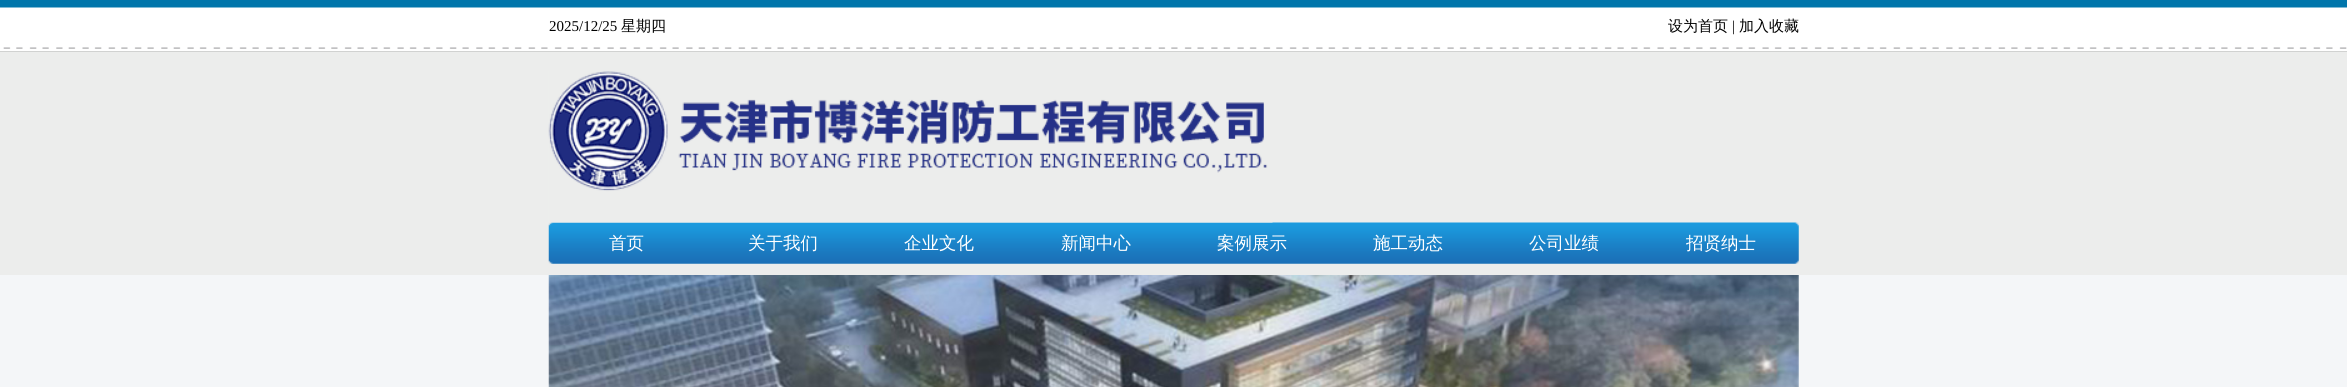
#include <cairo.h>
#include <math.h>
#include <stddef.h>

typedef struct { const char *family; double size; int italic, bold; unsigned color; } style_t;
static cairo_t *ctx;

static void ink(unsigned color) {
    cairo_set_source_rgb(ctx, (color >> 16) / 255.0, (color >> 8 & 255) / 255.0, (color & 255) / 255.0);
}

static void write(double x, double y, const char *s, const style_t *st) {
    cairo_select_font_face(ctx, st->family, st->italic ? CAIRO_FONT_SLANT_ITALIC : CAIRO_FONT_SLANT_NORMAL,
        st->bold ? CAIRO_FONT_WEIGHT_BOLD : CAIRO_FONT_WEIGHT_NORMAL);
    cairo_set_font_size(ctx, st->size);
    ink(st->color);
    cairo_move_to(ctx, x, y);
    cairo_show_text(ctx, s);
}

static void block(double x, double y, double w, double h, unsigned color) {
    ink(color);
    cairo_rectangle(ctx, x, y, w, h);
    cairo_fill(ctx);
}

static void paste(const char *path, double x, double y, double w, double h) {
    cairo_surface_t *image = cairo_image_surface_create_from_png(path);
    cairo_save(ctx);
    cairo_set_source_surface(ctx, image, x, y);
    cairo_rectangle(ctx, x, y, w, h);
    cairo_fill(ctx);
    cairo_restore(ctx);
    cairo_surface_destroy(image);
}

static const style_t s1 = {"Liberation Serif", 15, 0, 0, 0x000000};
static const style_t s2 = {"WenQuanYi Zen Hei Medium", 15, 0, 0, 0x000000};
static const style_t s3 = {"WenQuanYi Zen Hei Medium", 17.5, 0, 0, 0xffffff};

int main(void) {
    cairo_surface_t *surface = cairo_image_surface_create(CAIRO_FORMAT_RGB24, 2347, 387);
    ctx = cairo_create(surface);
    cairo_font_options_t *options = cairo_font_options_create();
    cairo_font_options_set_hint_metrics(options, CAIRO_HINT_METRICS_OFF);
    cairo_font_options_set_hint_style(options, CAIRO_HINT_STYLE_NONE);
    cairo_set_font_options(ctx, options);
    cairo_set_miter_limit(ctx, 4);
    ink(0xf4f6f8);
    cairo_paint(ctx);
    paste("pic1.png", 0, 0, 2347, 52);
    write(549, 31, "2025/12/25", &s1);
    write(621, 31, "星期四", &s2);
    write(1668, 31, "设为首页", &s2);
    write(1732, 31, "|", &s1);
    write(1739, 31, "加入收藏", &s2);
    block(0, 52, 2347, 223, 0xecedec);
    paste("pic3.png", 548, 222, 1251, 42);
    paste("pic2.png", 548, 71, 725, 152);
    write(609, 249, "首页", &s3);
    write(748, 249, "关于我们", &s3);
    write(904, 249, "企业文化", &s3);
    write(1061, 249, "新闻中心", &s3);
    write(1217, 249, "案例展示", &s3);
    write(1373, 249, "施工动态", &s3);
    write(1529, 249, "公司业绩", &s3);
    write(1686, 249, "招贤纳士", &s3);
    paste("pic4.png", 548, 275, 1251, 112);
    cairo_surface_write_to_png(surface, "screenshot.png");
    cairo_font_options_destroy(options);
    cairo_destroy(ctx);
    cairo_surface_destroy(surface);
    return 0;
}
